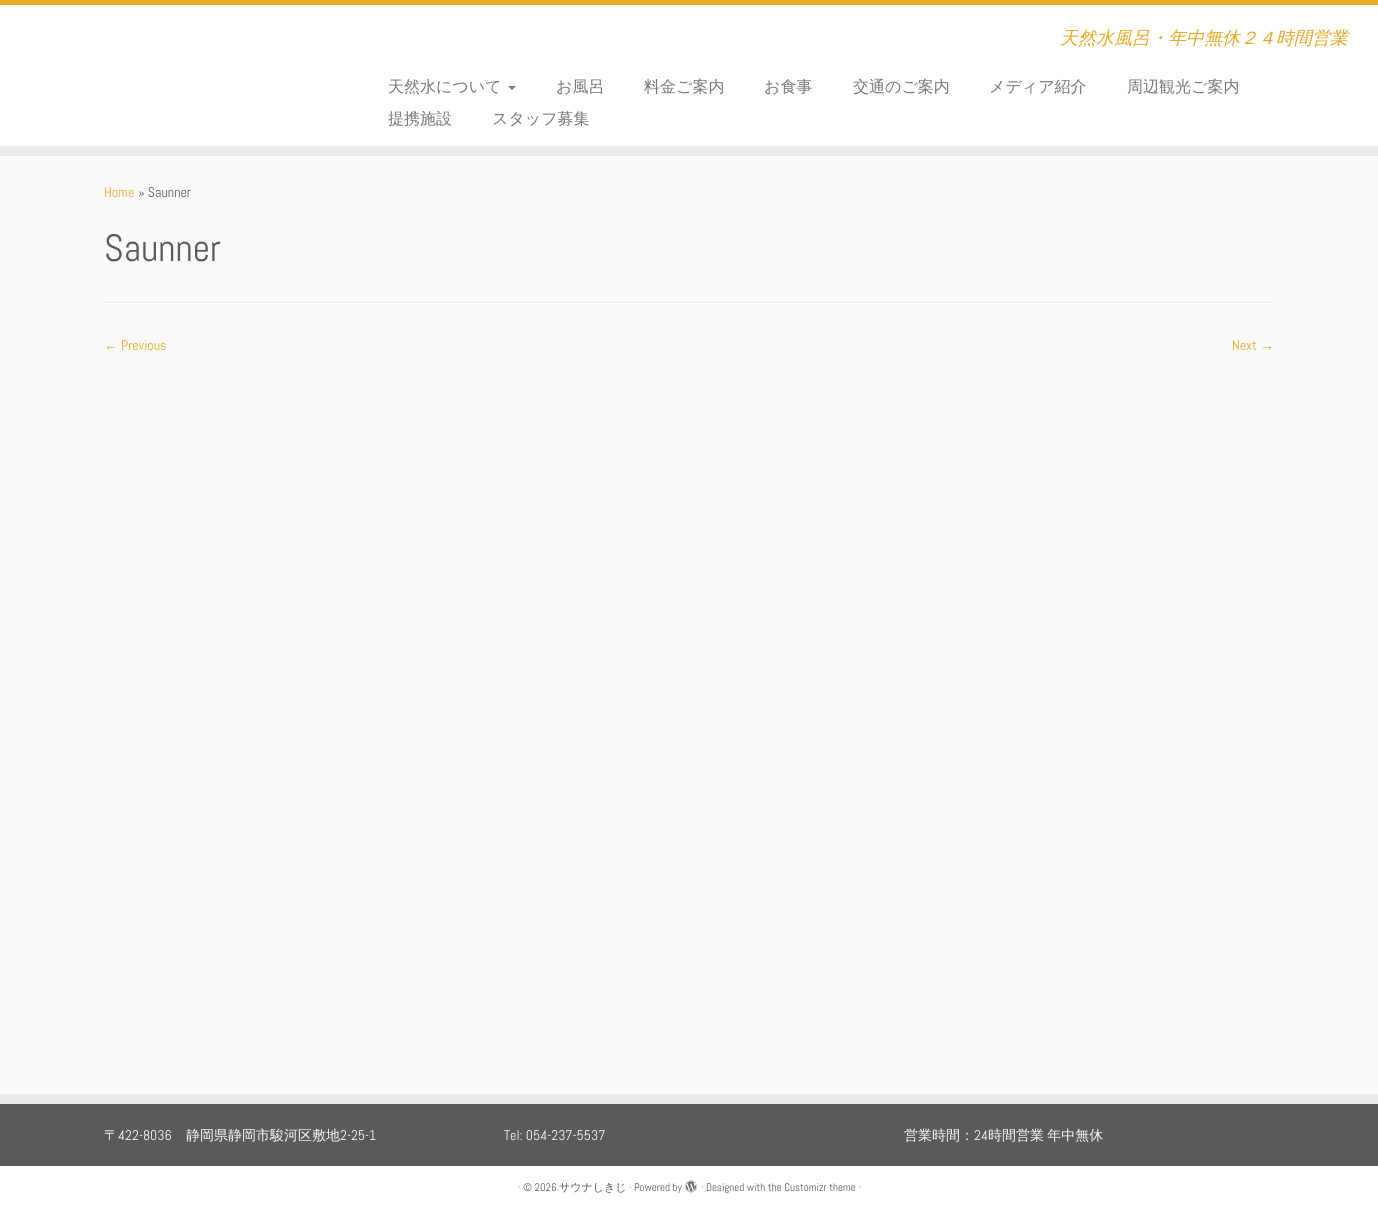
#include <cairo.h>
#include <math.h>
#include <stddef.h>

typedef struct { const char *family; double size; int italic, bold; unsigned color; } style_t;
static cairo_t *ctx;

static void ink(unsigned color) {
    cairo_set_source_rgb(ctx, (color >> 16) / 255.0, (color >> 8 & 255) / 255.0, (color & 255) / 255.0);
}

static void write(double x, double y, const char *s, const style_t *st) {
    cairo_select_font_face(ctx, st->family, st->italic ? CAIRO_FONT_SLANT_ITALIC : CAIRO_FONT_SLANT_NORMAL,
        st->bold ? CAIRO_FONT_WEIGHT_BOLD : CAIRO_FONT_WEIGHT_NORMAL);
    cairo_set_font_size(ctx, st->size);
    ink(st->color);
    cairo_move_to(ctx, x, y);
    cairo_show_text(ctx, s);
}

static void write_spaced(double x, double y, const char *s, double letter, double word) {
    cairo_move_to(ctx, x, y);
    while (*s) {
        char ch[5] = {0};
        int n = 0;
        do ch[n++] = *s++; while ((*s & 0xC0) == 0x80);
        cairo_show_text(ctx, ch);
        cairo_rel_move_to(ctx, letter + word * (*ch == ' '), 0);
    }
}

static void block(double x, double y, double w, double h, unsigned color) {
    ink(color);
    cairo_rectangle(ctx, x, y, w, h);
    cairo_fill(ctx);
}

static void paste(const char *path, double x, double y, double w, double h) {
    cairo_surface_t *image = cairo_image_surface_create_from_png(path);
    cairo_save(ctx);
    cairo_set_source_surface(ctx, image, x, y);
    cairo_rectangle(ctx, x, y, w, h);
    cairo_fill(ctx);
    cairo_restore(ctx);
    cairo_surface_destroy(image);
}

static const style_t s1 = {"WenQuanYi Zen Hei Medium", 18, 1, 0, 0xe9a825};
static const style_t s2 = {"WenQuanYi Zen Hei Medium", 16, 0, 0, 0x777777};
static const style_t s3 = {"Abel", 14, 0, 0, 0xe9a825};
static const style_t s4 = {"Abel", 14, 0, 0, 0x5a5a5a};
static const style_t s5 = {"Abel", 38, 0, 0, 0x5a5a5a};
static const style_t s6 = {"Liberation Serif", 14, 0, 0, 0xe9a825};
static const style_t s7 = {"WenQuanYi Zen Hei Medium", 14, 0, 0, 0xfafafa};
static const style_t s8 = {"Abel", 14, 0, 0, 0xfafafa};
static const style_t s9 = {"Abel", 11, 0, 0, 0x5a5a5a};
static const style_t s10 = {"WenQuanYi Zen Hei Medium", 11, 0, 0, 0x5a5a5a};

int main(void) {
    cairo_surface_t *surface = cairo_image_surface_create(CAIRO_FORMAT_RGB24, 1378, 1218);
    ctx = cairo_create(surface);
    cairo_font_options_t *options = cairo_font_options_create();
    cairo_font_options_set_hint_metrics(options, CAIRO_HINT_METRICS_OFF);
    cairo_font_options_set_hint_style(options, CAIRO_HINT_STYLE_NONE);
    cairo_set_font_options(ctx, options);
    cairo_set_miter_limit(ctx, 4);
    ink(0xfafafa);
    cairo_paint(ctx);
    block(0, 5, 1378, 141, 0xffffff);
    block(0, 0, 1378, 5, 0xe9a825);
    block(0, 146, 1378, 10, 0xe9eaee);
    write(1060, 44, "天然水風呂・年中無休２４時間営業", &s1);
    write(388, 92, "天然水について", &s2);
    cairo_new_path(ctx);
    cairo_move_to(ctx, 508, 86);
    cairo_line_to(ctx, 516, 86);
    cairo_line_to(ctx, 512, 90);
    cairo_close_path(ctx);
    cairo_fill(ctx);
    write(556, 92, "お風呂", &s2);
    write(644, 92, "料金ご案内", &s2);
    write(764, 92, "お食事", &s2);
    write(853, 92, "交通のご案内", &s2);
    write(989, 92, "メディア紹介", &s2);
    write(1127, 92, "周辺観光ご案内", &s2);
    write(388, 124, "提携施設", &s2);
    write(492, 124, "スタッフ募集", &s2);
    write(104, 197, "Home", &s3);
    write(138, 197, "» Saunner", &s4);
    write(104, 261, "Saunner", &s5);
    block(104, 302, 1170, 1, 0xeeeeee);
    block(104, 303, 1170, 1, 0xffffff);
    write(104, 350, "←", &s6);
    write(121, 350, "Previous", &s3);
    write(1232, 350, "Next", &s3);
    write(1260, 350, "→", &s6);
    block(0, 1104, 1378, 62, 0x5a5a5a);
    block(0, 1094, 1378, 10, 0xe9eaee);
    write(104, 1140, "〒", &s7);
    write(118, 1140, "422-8036", &s8);
    write(186, 1140, "静岡県静岡市駿河区敷地", &s7);
    write(340, 1140, "2-25-1", &s8);
    write(504, 1140, "Tel: 054-237-5537", &s8);
    write(904, 1140, "営業時間：", &s7);
    write(974, 1140, "24", &s8);
    cairo_select_font_face(ctx, "WenQuanYi Zen Hei Medium", CAIRO_FONT_SLANT_NORMAL, CAIRO_FONT_WEIGHT_NORMAL);
    write_spaced(988, 1140, "時間営業 年中無休", 0, -1);
    block(0, 1166, 1378, 52, 0xffffff);
    write(518, 1191, "· © 2026", &s9);
    write(559, 1191, "サウナしきじ", &s10);
    write(629, 1191, "· Powered by", &s9);
    paste("pic1.png", 685, 1180, 12, 13);
    write(701, 1191, "· Designed with the Customizr theme ·", &s9);
    cairo_surface_write_to_png(surface, "screenshot.png");
    cairo_font_options_destroy(options);
    cairo_destroy(ctx);
    cairo_surface_destroy(surface);
    return 0;
}
